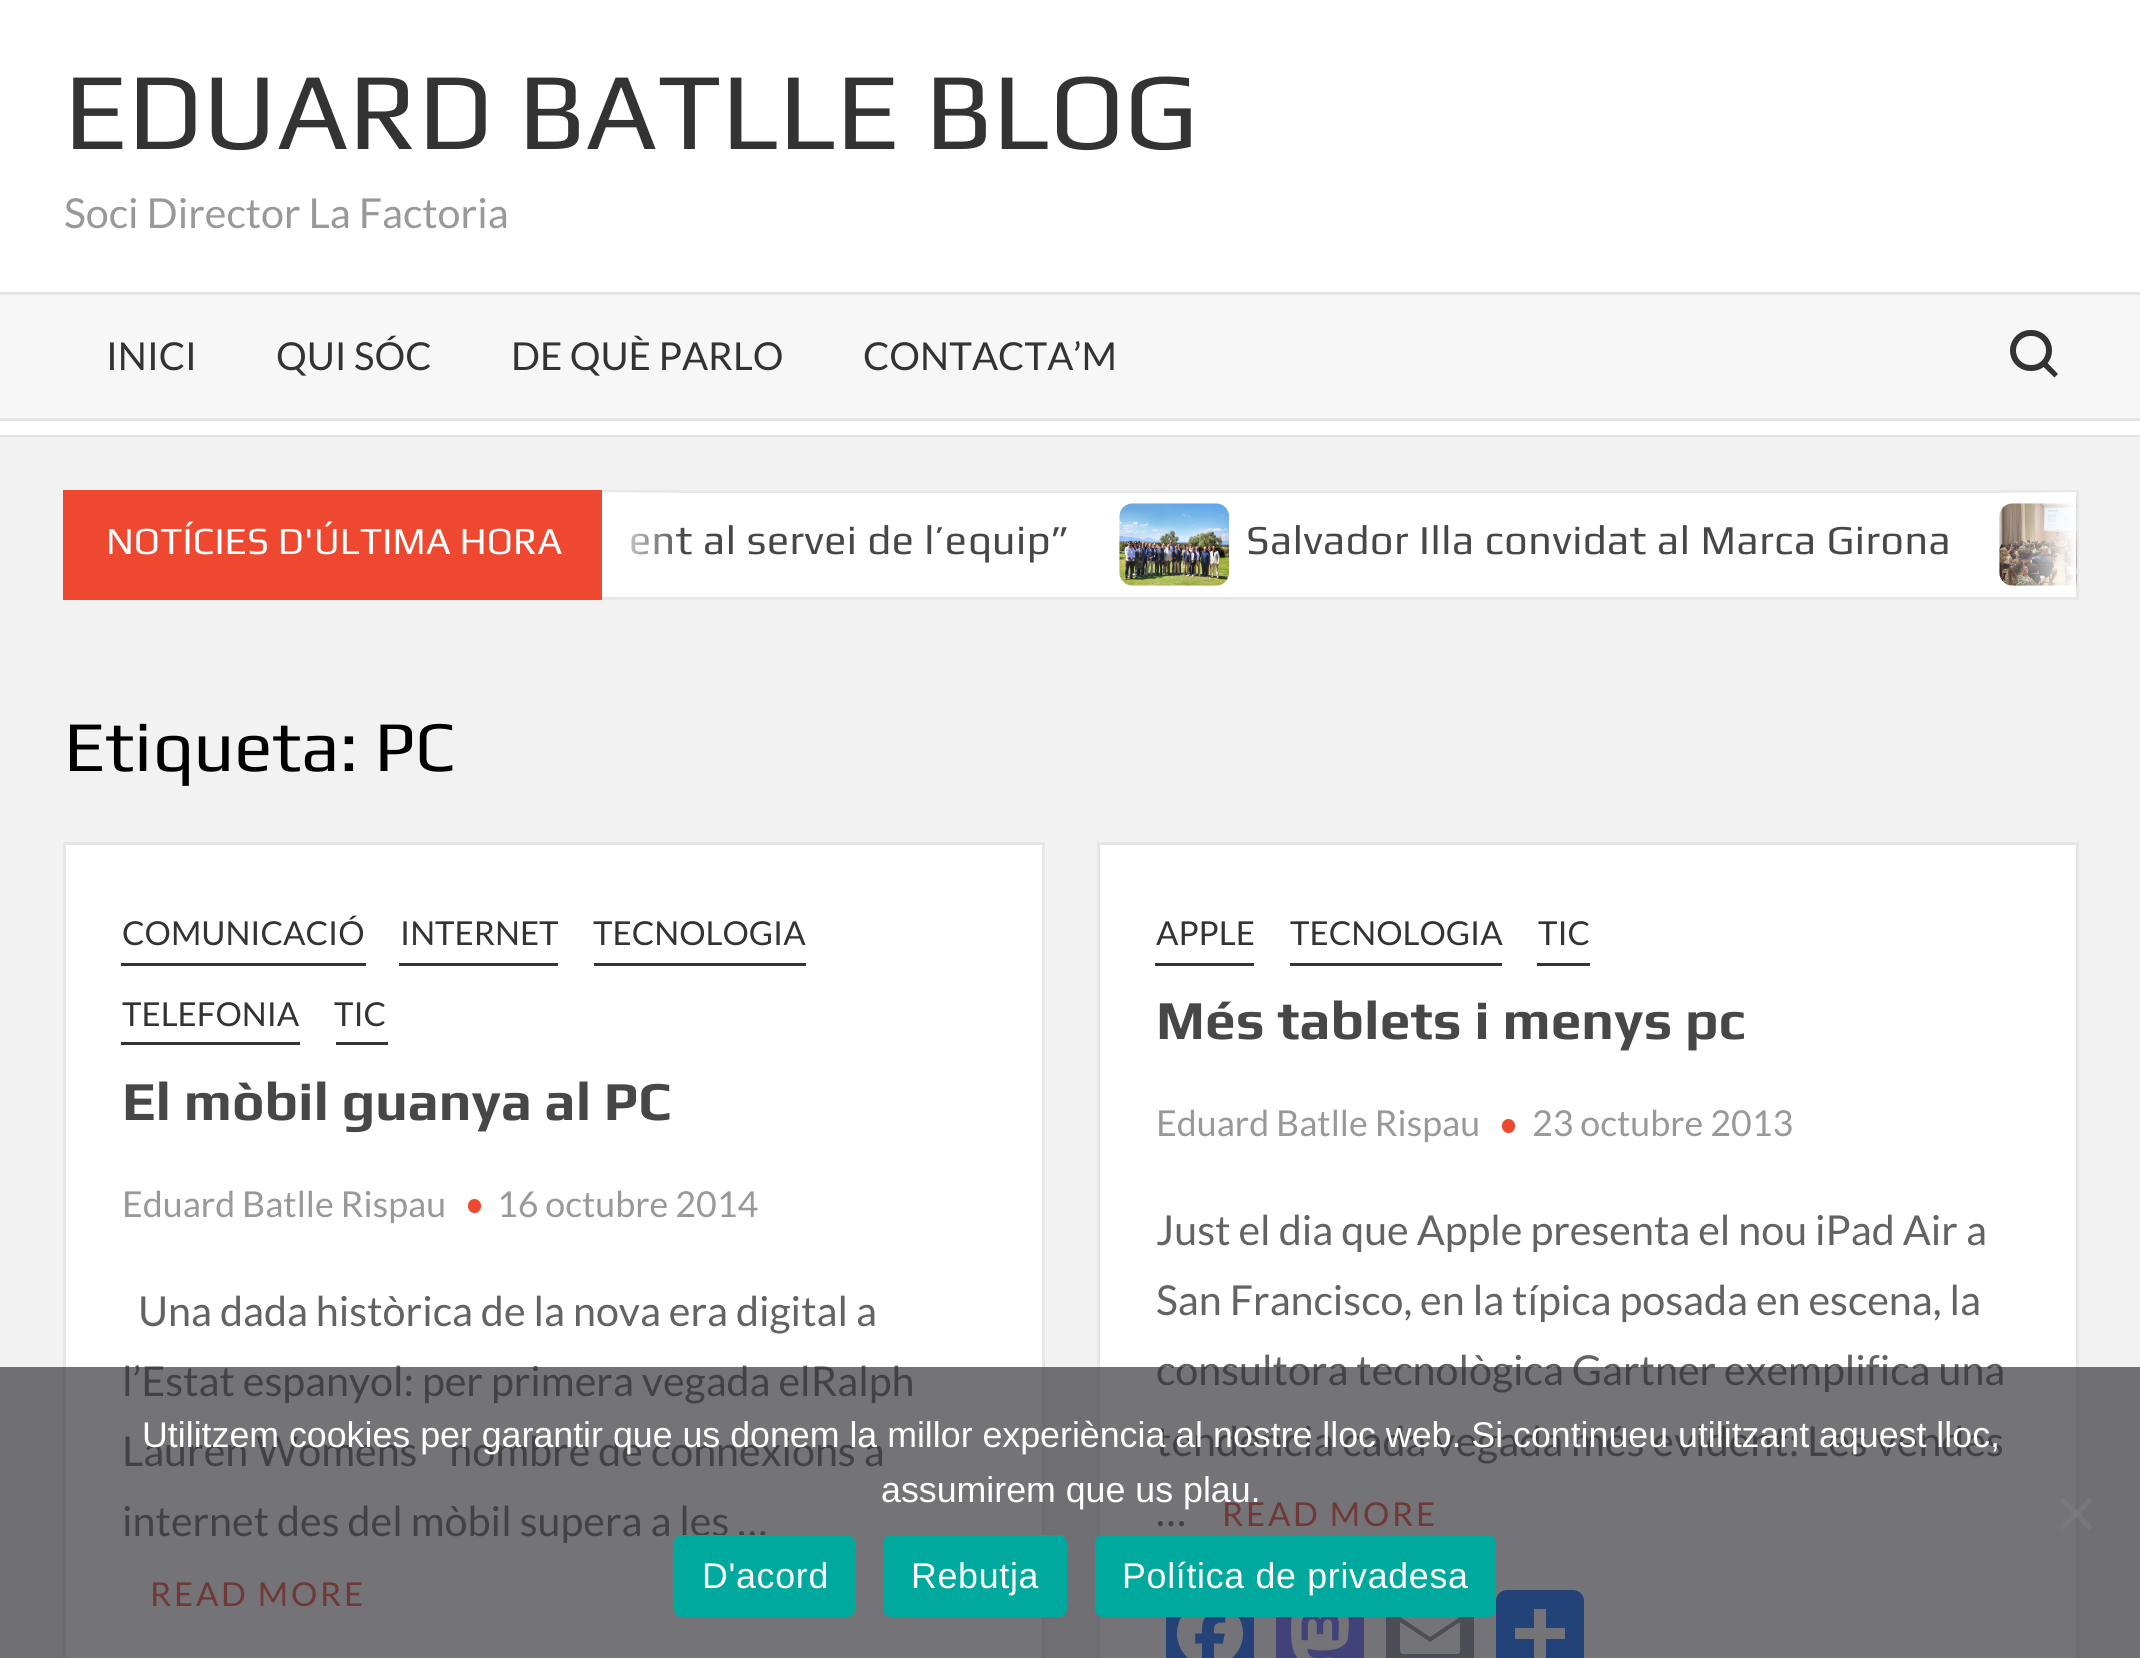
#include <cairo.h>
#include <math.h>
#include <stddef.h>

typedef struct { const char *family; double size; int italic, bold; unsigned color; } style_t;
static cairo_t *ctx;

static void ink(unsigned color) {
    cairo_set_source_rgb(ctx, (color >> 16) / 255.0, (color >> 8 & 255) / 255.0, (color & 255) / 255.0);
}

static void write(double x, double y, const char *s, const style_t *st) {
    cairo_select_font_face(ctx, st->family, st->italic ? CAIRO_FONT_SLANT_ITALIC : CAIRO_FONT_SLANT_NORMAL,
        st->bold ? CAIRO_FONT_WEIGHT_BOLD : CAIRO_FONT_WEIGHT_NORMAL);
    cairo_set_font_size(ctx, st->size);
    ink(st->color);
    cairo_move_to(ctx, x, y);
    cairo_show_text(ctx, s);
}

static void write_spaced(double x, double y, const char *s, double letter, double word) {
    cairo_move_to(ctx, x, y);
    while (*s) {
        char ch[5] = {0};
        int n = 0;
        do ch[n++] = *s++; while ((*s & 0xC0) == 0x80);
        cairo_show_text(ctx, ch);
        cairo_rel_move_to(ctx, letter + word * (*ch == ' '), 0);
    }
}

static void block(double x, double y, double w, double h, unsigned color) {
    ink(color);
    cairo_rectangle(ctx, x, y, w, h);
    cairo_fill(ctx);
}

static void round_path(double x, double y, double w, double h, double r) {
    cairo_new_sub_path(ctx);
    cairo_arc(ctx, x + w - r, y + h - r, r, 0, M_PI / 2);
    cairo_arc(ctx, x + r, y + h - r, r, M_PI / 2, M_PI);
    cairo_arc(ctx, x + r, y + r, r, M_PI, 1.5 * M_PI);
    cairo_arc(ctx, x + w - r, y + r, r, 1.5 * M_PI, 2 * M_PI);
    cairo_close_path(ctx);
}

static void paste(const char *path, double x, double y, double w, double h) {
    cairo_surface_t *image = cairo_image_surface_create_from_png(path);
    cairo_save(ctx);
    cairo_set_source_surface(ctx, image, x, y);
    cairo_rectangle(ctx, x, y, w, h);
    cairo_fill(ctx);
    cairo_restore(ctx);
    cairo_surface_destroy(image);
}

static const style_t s1 = {"Play", 110, 0, 0, 0x333333};
static const style_t s2 = {"Lato", 41.25, 0, 0, 0x999999};
static const style_t s3 = {"Lato", 38.5, 0, 0, 0x333333};
static const style_t s4 = {"Play", 38.5, 0, 0, 0xffffff};
static const style_t s5 = {"Play", 71.5, 0, 0, 0x000000};
static const style_t s6 = {"Lato", 33, 0, 0, 0x333333};
static const style_t s7 = {"Play", 55, 0, 1, 0x474747};
static const style_t s8 = {"Lato", 35.75, 0, 0, 0x999999};
static const style_t s9 = {"Lato", 41.25, 0, 0, 0x636363};
static const style_t s10 = {"Liberation Sans", 35.75, 0, 0, 0xffffff};

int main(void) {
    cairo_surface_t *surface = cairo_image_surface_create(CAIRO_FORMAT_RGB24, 2140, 1658);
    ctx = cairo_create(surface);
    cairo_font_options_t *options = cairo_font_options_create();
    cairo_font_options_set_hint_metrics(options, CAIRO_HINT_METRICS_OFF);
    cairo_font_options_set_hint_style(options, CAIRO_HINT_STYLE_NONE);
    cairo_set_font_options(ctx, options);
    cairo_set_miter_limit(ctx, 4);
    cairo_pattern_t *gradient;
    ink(0xf2f2f2);
    cairo_paint(ctx);
    block(0, 0, 2140, 292, 0xffffff);
    write(64, 149, "EDUARD BATLLE BLOG", &s1);
    write(64, 228, "Soci Director La Factoria", &s2);
    block(0, 435, 2140, 2, 0xe4e4e4);
    block(0, 295, 2140, 123, 0xf7f7f7);
    block(0, 421, 2140, 14, 0xffffff);
    block(0, 292, 2140, 3, 0xe4e4e4);
    block(0, 418, 2140, 3, 0xe4e4e4);
    write(106, 370, "INICI", &s3);
    write(276, 370, "QUI SÓC", &s3);
    write(511, 370, "DE QUÈ PARLO", &s3);
    write(863, 370, "CONTACTA’M", &s3);
    round_path(2013, 333, 36, 35, 17.5);
    cairo_set_line_width(ctx, 6);
    cairo_stroke(ctx);
    cairo_new_path(ctx);
    cairo_move_to(ctx, 2046.5, 362);
    cairo_line_to(ctx, 2058, 374);
    cairo_line_to(ctx, 2054.5, 377.5);
    cairo_line_to(ctx, 2042.5, 366);
    cairo_close_path(ctx);
    cairo_fill(ctx);
    block(602, 493, 1474, 104, 0xffffff);
    cairo_rectangle(ctx, 64.5, 491.5, 2013, 107);
    ink(0xe7e7e7);
    cairo_set_line_width(ctx, 3);
    cairo_stroke(ctx);
    block(63, 490, 539, 110, 0xee4930);
    write(106, 554, "NOTÍCIES D'ÚLTIMA HORA", &s4);
    cairo_set_font_size(ctx, 41.25);
    ink(0x474747);
    write_spaced(629, 554, "ent al servei de l’equip”", 0.55, 0);
    gradient = cairo_pattern_create_linear(602, 545, 685, 545);
    cairo_pattern_add_color_stop_rgba(gradient, 0, 1, 1, 1, 1);
    cairo_pattern_add_color_stop_rgba(gradient, 1, 1, 1, 1, 0);
    cairo_set_source(ctx, gradient);
    cairo_pattern_destroy(gradient);
    cairo_rectangle(ctx, 602, 492, 81, 63);
    cairo_fill(ctx);
    paste("pic1.png", 1119, 503, 111, 83);
    ink(0x474747);
    write_spaced(1246, 554, "Salvador Illa convidat al Marca Girona", 0.55, 0);
    paste("pic2.png", 1999, 503, 78, 83);
    gradient = cairo_pattern_create_linear(1994, 545, 2076, 545);
    cairo_pattern_add_color_stop_rgba(gradient, 0, 1, 1, 1, 0);
    cairo_pattern_add_color_stop_rgba(gradient, 1, 1, 1, 1, 1);
    cairo_set_source(ctx, gradient);
    cairo_pattern_destroy(gradient);
    cairo_rectangle(ctx, 1999, 492, 77, 94);
    cairo_fill(ctx);
    write(64, 771, "Etiqueta: PC", &s5);
    ink(0xffffff);
    cairo_rectangle(ctx, 64.5, 843.5, 979, 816);
    cairo_fill_preserve(ctx);
    ink(0xe6e6e6);
    cairo_stroke(ctx);
    block(121, 963, 245, 3, 0x333333);
    write(122, 945, "COMUNICACIÓ", &s6);
    block(399, 963, 159, 3, 0x333333);
    write(400, 945, "INTERNET", &s6);
    block(594, 963, 212, 3, 0x333333);
    write(593, 945, "TECNOLOGIA", &s6);
    block(121, 1042, 179, 3, 0x333333);
    write(122, 1026, "TELEFONIA", &s6);
    block(336, 1042, 52, 3, 0x333333);
    write(334, 1026, "TIC", &s6);
    write(122, 1120, "El mòbil guanya al PC", &s7);
    write(122, 1217, "Eduard Batlle Rispau", &s8);
    ink(0xee4930);
    round_path(468, 1199, 13, 14, 6.5);
    cairo_fill(ctx);
    write(497, 1217, "16 octubre 2014", &s8);
    write(138, 1326, "Una dada històrica de la nova era digital a", &s9);
    write(122, 1396, "l’Estat espanyol: per primera vegada elRalph", &s9);
    write(122, 1466, "Lauren Womens    nombre de connexions a", &s9);
    write(122, 1536, "internet des del mòbil supera a les …", &s9);
    cairo_set_font_size(ctx, 33);
    ink(0xee4930);
    write_spaced(150, 1606, "READ MORE", 2.75, 0);
    ink(0xffffff);
    cairo_rectangle(ctx, 1098.5, 843.5, 979, 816);
    cairo_fill_preserve(ctx);
    ink(0xe6e6e6);
    cairo_stroke(ctx);
    block(1155, 963, 99, 3, 0x333333);
    write(1156, 945, "APPLE", &s6);
    block(1290, 963, 212, 3, 0x333333);
    write(1290, 945, "TECNOLOGIA", &s6);
    block(1537, 963, 53, 3, 0x333333);
    write(1538, 945, "TIC", &s6);
    write(1156, 1039, "Més tablets i menys pc", &s7);
    write(1156, 1136, "Eduard Batlle Rispau", &s8);
    ink(0xee4930);
    round_path(1502, 1119, 13, 14, 6.5);
    cairo_fill(ctx);
    write(1532, 1136, "23 octubre 2013", &s8);
    write(1156, 1245, "Just el dia que Apple presenta el nou iPad Air a", &s9);
    write(1156, 1315, "San Francisco, en la típica posada en escena, la", &s9);
    write(1156, 1385, "consultora tecnològica Gartner exemplifica una", &s9);
    write(1156, 1456, "tendència cada vegada més evident: Les vendes", &s9);
    write(1156, 1526, "…", &s9);
    cairo_set_font_size(ctx, 33);
    ink(0xee4930);
    write_spaced(1222, 1526, "READ MORE", 2.75, 0);
    block(1166, 1617, 88, 41, 0x0866ff);
    paste("pic3.png", 1177, 1617, 66, 41);
    block(1276, 1617, 88, 41, 0x6364ff);
    paste("pic4.png", 1291, 1617, 58, 41);
    block(1386, 1617, 88, 41, 0x888990);
    ink(0xffffff);
    cairo_new_path(ctx);
    cairo_move_to(ctx, 1460, 1649);
    cairo_line_to(ctx, 1460, 1622);
    cairo_line_to(ctx, 1430, 1642);
    cairo_line_to(ctx, 1400, 1622);
    cairo_line_to(ctx, 1400, 1649);
    cairo_curve_to(ctx, 1400, 1653, 1401, 1654, 1404, 1654);
    cairo_line_to(ctx, 1456, 1654);
    cairo_curve_to(ctx, 1460, 1654, 1460, 1653, 1460, 1649);
    cairo_move_to(ctx, 1460, 1617);
    cairo_curve_to(ctx, 1460, 1614, 1459, 1613, 1456, 1613);
    cairo_line_to(ctx, 1404, 1613);
    cairo_curve_to(ctx, 1400, 1613, 1400, 1614, 1400, 1617);
    cairo_line_to(ctx, 1430, 1637);
    cairo_close_path(ctx);
    cairo_fill(ctx);
    ink(0x0166ff);
    round_path(1496, 1590, 88, 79, 11);
    cairo_fill(ctx);
    block(1534, 1609, 12, 49, 0xffffff);
    block(1515, 1628, 50, 11, 0xffffff);
    cairo_set_source_rgba(ctx, 0.196, 0.196, 0.227, 0.68);
    cairo_rectangle(ctx, 0, 1367, 2140, 291);
    cairo_fill(ctx);
    write(142, 1447, "Utilitzem cookies per garantir que us donem la millor experiència al nostre lloc web. Si continueu utilitzant aquest lloc,", &s10);
    write(881, 1502, "assumirem que us plau.", &s10);
    cairo_set_source_rgba(ctx, 0.502, 0.502, 0.502, 0.5);
    cairo_new_path(ctx);
    cairo_move_to(ctx, 2089, 1497.5);
    cairo_line_to(ctx, 2093, 1501);
    cairo_line_to(ctx, 2063.5, 1530.5);
    cairo_line_to(ctx, 2059.5, 1526.5);
    cairo_close_path(ctx);
    cairo_fill(ctx);
    cairo_new_path(ctx);
    cairo_move_to(ctx, 2059.5, 1501);
    cairo_line_to(ctx, 2063.5, 1497.5);
    cairo_line_to(ctx, 2093, 1526.5);
    cairo_line_to(ctx, 2089, 1530.5);
    cairo_close_path(ctx);
    cairo_fill(ctx);
    ink(0x00a99d);
    round_path(674, 1535, 181, 82, 8);
    cairo_fill(ctx);
    ink(0xffffff);
    write_spaced(702, 1588, "D'acord", 0.7, 0);
    ink(0x00a99d);
    round_path(883, 1535, 184, 82, 8);
    cairo_fill(ctx);
    ink(0xffffff);
    write_spaced(911, 1588, "Rebutja", 0.7, 0);
    ink(0x00a99d);
    round_path(1095, 1535, 401, 82, 8);
    cairo_fill(ctx);
    ink(0xffffff);
    write_spaced(1122, 1588, "Política de privadesa", 0.7, 0);
    cairo_surface_write_to_png(surface, "screenshot.png");
    cairo_font_options_destroy(options);
    cairo_destroy(ctx);
    cairo_surface_destroy(surface);
    return 0;
}
